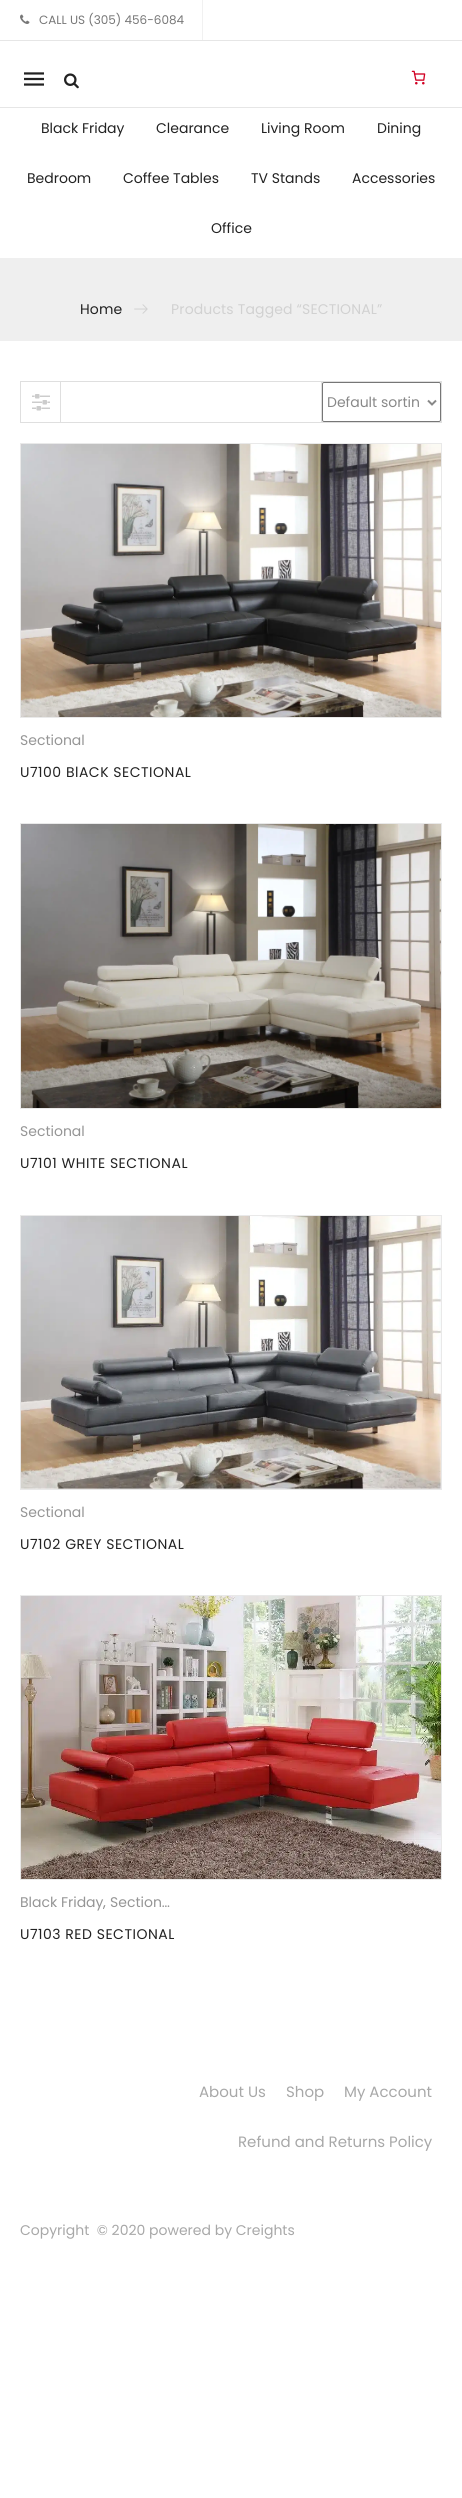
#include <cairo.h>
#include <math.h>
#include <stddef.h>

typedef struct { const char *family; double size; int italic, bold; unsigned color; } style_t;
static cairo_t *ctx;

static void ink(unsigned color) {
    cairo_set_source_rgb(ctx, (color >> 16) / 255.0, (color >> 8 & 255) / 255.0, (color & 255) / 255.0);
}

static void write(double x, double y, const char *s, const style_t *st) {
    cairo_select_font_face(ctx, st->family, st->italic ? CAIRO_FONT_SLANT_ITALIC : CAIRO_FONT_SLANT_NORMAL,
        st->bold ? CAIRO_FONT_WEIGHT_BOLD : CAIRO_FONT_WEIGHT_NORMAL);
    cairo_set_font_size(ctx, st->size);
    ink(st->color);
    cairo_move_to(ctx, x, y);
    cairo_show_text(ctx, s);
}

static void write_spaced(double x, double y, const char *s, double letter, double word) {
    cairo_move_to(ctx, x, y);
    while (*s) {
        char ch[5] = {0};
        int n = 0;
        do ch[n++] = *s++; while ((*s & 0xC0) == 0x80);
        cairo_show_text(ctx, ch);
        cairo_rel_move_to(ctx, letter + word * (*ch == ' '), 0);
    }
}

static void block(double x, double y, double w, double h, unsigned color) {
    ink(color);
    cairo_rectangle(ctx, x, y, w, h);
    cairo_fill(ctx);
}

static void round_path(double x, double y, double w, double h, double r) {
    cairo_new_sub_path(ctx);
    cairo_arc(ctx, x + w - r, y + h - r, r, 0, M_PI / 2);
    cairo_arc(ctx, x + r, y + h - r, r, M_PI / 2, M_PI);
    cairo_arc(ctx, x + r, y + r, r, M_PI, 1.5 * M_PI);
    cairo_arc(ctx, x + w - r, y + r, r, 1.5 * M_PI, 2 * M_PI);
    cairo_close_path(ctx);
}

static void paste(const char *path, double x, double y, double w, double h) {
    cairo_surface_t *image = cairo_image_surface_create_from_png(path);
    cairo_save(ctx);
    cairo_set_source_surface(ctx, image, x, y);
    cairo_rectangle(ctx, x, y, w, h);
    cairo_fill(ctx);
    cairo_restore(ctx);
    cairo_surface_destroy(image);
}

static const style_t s1 = {"Poppins", 12, 0, 0, 0x777777};
static const style_t s2 = {"Poppins", 14, 0, 0, 0x222222};
static const style_t s3 = {"Poppins", 14, 0, 0, 0x888888};
static const style_t s4 = {"Poppins", 14, 0, 0, 0x959595};
static const style_t s5 = {"Poppins", 15, 0, 0, 0xa8a8a8};
static const style_t s6 = {"Poppins", 14, 0, 0, 0xa8a8a8};

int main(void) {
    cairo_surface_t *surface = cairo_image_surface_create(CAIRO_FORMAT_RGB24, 462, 2498);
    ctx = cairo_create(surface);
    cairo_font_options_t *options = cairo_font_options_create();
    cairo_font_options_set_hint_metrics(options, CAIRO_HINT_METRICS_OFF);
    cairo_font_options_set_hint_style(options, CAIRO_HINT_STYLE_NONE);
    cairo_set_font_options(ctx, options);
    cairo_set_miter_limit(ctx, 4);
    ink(0xffffff);
    cairo_paint(ctx);
    block(0, 40, 462, 1, 0xe6e6e6);
    block(202, 0, 1, 40, 0xf1f1f1);
    paste("pic1.png", 20, 14, 10, 10);
    write(39, 24, "CALL US (305) 456-6084", &s1);
    block(0, 107, 462, 1, 0xe6e6e6);
    paste("pic2.png", 24, 72, 20, 14);
    paste("pic3.png", 64, 73, 15, 16);
    paste("pic4.png", 411, 70, 15, 15);
    write(41, 133, "Black Friday", &s2);
    write(156, 133, "Clearance", &s2);
    write(261, 133, "Living Room", &s2);
    write(377, 133, "Dining", &s2);
    write(27, 183, "Bedroom", &s2);
    write(123, 183, "Coffee Tables", &s2);
    write(251, 183, "TV Stands", &s2);
    write(352, 183, "Accessories", &s2);
    write(211, 233, "Office", &s2);
    block(0, 258, 462, 83, 0xefefef);
    ink(0x222222);
    write_spaced(80, 314, "Home", 0.15, 0);
    paste("pic5.png", 134, 304, 14, 10);
    ink(0xd1d1d1);
    write_spaced(171, 314, "Products Tagged “SECTIONAL”", 0.15, 0);
    cairo_rectangle(ctx, 20.5, 381.5, 421, 41);
    ink(0xdfdfdf);
    cairo_set_line_width(ctx, 1);
    cairo_stroke(ctx);
    block(60, 382, 1, 40, 0xdfdfdf);
    paste("pic6.png", 32, 394, 18, 17);
    block(321, 382, 1, 40, 0xdfdfdf);
    round_path(322.5, 382.5, 118, 39, 1.5);
    ink(0x767676);
    cairo_stroke(ctx);
    cairo_new_path(ctx);
    cairo_move_to(ctx, 428, 400.5);
    cairo_line_to(ctx, 432, 404.5);
    cairo_line_to(ctx, 436, 400.5);
    ink(0x888888);
    cairo_set_line_width(ctx, 2);
    cairo_stroke(ctx);
    write(327, 407, "Default sortin", &s3);
    cairo_rectangle(ctx, 20.5, 443.5, 421, 274);
    ink(0xe9e9e9);
    cairo_set_line_width(ctx, 1);
    cairo_stroke(ctx);
    paste("pic7.png", 21, 444, 420, 273);
    write(20, 745, "Sectional", &s4);
    ink(0x222222);
    write_spaced(20, 777, "U7100 BlACK SECTIONAL", 0.5, 0);
    cairo_rectangle(ctx, 20.5, 823.5, 421, 285);
    ink(0xe9e9e9);
    cairo_stroke(ctx);
    paste("pic8.png", 21, 824, 420, 284);
    write(20, 1136, "Sectional", &s4);
    ink(0x222222);
    write_spaced(20, 1168, "U7101 WHITE SECTIONAL", 0.5, 0);
    cairo_rectangle(ctx, 20.5, 1215.5, 421, 274);
    ink(0xe9e9e9);
    cairo_stroke(ctx);
    paste("pic9.png", 21, 1216, 420, 273);
    write(20, 1517, "Sectional", &s4);
    ink(0x222222);
    write_spaced(20, 1549, "U7102 GREY SECTIONAL", 0.5, 0);
    cairo_rectangle(ctx, 20.5, 1595.5, 421, 284);
    ink(0xe9e9e9);
    cairo_stroke(ctx);
    paste("pic10.png", 21, 1596, 420, 283);
    write(20, 1907, "Black Friday", &s4);
    write(103, 1907, ",", &s3);
    write(110, 1907, "Section…", &s4);
    ink(0x222222);
    write_spaced(20, 1939, "U7103 RED SECTIONAL", 0.5, 0);
    write(199, 2097, "About Us", &s5);
    write(286, 2097, "Shop", &s5);
    write(344, 2097, "My Account", &s5);
    write(238, 2147, "Refund and Returns Policy", &s5);
    write(20, 2235, "Copyright  © 2020 powered by Creights", &s6);
    cairo_surface_write_to_png(surface, "screenshot.png");
    cairo_font_options_destroy(options);
    cairo_destroy(ctx);
    cairo_surface_destroy(surface);
    return 0;
}
